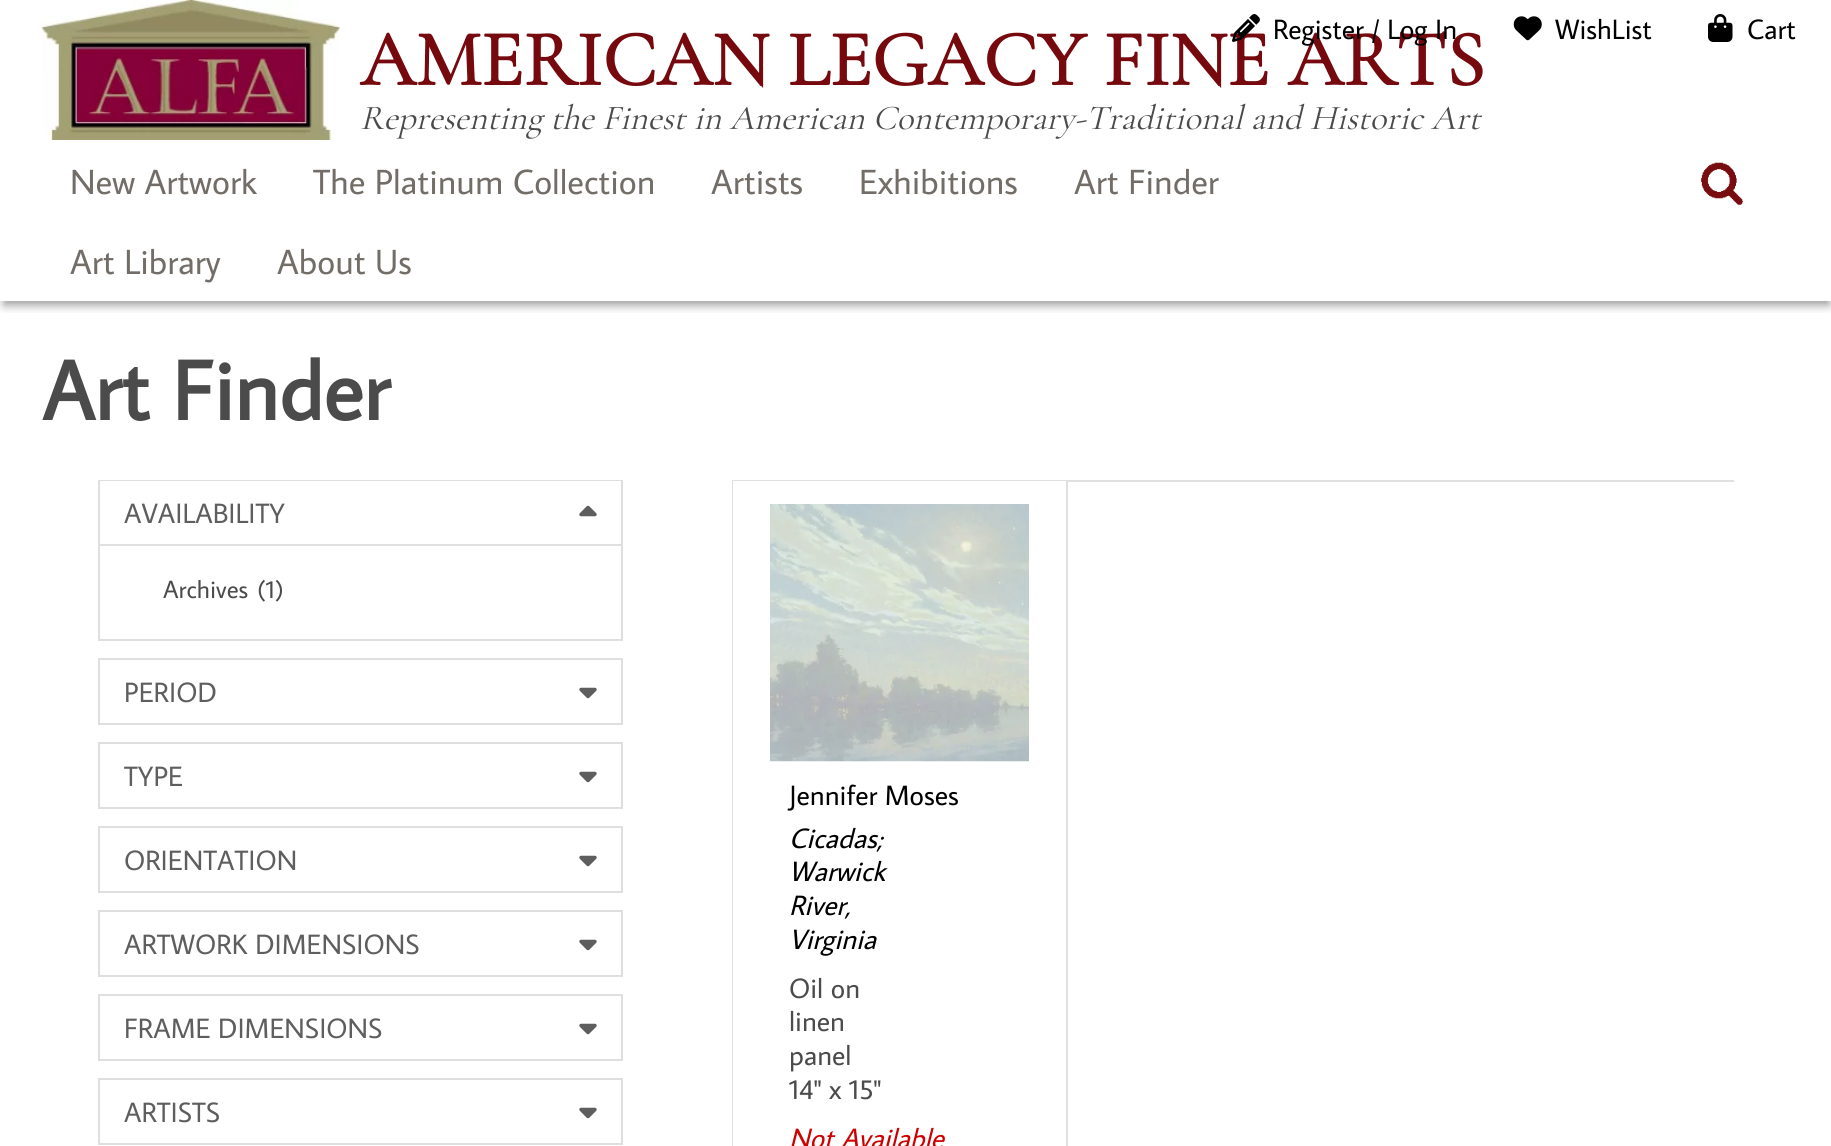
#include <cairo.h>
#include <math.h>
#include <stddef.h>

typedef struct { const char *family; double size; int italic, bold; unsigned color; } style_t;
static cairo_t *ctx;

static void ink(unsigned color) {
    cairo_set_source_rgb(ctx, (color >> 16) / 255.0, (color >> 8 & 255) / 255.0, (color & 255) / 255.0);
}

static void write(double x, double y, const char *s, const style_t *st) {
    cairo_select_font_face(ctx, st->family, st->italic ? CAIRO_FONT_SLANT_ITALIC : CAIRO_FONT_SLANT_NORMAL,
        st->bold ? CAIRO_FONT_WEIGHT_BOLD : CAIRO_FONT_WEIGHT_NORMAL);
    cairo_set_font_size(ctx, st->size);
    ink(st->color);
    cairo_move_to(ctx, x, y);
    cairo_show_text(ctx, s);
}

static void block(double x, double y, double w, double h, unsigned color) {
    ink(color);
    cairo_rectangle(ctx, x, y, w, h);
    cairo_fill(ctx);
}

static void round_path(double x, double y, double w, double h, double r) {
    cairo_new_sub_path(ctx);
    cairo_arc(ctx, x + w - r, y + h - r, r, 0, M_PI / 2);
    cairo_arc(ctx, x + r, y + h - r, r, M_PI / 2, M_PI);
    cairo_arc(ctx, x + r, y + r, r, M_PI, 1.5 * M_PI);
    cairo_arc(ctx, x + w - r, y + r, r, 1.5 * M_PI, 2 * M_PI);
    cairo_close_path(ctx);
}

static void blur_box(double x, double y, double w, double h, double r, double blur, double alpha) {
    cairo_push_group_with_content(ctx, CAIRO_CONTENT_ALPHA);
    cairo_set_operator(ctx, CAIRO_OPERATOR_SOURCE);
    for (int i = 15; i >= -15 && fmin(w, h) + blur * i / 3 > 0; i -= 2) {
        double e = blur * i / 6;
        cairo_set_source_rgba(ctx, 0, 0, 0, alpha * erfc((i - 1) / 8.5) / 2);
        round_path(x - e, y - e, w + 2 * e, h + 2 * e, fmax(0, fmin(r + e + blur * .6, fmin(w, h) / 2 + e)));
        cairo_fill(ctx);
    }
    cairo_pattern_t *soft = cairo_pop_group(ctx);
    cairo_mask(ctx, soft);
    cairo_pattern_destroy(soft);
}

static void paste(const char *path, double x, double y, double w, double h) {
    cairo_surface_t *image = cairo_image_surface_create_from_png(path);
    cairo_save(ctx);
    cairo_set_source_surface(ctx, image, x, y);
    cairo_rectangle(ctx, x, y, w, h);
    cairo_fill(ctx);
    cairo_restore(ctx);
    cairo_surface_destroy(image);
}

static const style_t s1 = {"Cormorant Garamond", 78.75, 0, 1, 0x76090e};
static const style_t s2 = {"Cormorant Garamond Light", 35, 1, 0, 0x4b4b4b};
static const style_t s3 = {"Average Sans", 28, 0, 0, 0x000000};
static const style_t s4 = {"Average Sans", 35, 0, 0, 0x736d67};
static const style_t s5 = {"Average Sans", 84, 0, 1, 0x4b4b4b};
static const style_t s6 = {"Average Sans", 28, 0, 0, 0x5e5e5e};
static const style_t s7 = {"Average Sans", 25, 0, 0, 0x4b4b4b};
static const style_t s8 = {"Average Sans", 28, 1, 0, 0x000000};
static const style_t s9 = {"Average Sans", 28, 0, 0, 0x4b4b4b};
static const style_t s10 = {"Average Sans", 28, 1, 0, 0xcf0000};

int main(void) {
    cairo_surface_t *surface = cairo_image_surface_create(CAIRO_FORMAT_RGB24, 1831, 1146);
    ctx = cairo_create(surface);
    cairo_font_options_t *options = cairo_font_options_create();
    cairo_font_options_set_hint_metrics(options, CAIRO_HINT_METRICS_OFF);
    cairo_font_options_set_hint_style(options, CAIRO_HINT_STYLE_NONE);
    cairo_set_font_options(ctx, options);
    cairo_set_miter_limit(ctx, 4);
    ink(0xffffff);
    cairo_paint(ctx);
    cairo_save(ctx);
    cairo_rectangle(ctx, 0, 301, 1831, 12);
    cairo_clip(ctx);
    ink(0x000000);
    blur_box(4, 11, 1825, 294, 0, 5, 0.4);
    cairo_restore(ctx);
    paste("pic1.png", 42, 0, 298, 140);
    write(360, 85, "AMERICAN LEGACY FINE ARTS", &s1);
    write(360, 129, "Representing the Finest in American Contemporary-Traditional and Historic Art", &s2);
    paste("pic2.png", 1232, 14, 28, 28);
    write(1273, 39, "Register / Log In", &s3);
    paste("pic3.png", 1513, 16, 29, 25);
    write(1555, 39, "WishList", &s3);
    paste("pic4.png", 1708, 14, 25, 28);
    write(1747, 39, "Cart", &s3);
    write(70, 194, "New Artwork", &s4);
    write(313, 194, "The Platinum Collection", &s4);
    write(711, 194, "Artists", &s4);
    write(859, 194, "Exhibitions", &s4);
    write(1074, 194, "Art Finder", &s4);
    write(70, 274, "Art Library", &s4);
    write(277, 274, "About Us", &s4);
    paste("pic5.png", 1701, 162, 42, 43);
    write(42, 420, "Art Finder", &s5);
    cairo_rectangle(ctx, 99, 481, 523, 159);
    ink(0xdfdfdf);
    cairo_stroke(ctx);
    block(100, 481, 521, 1, 0xffffff);
    write(124, 523, "AVAILABILITY", &s6);
    paste("pic6.png", 579, 505, 18, 12);
    block(100, 544, 521, 2, 0xe0e0e0);
    write(163, 598, "Archives", &s7);
    write(257, 598, "(1)", &s7);
    cairo_rectangle(ctx, 99, 659, 523, 65);
    ink(0xdfdfdf);
    cairo_stroke(ctx);
    write(124, 702, "PERIOD", &s6);
    paste("pic7.png", 579, 687, 18, 12);
    cairo_rectangle(ctx, 99, 743, 523, 65);
    ink(0xdfdfdf);
    cairo_stroke(ctx);
    write(124, 786, "TYPE", &s6);
    paste("pic7.png", 579, 771, 18, 12);
    cairo_rectangle(ctx, 99, 827, 523, 65);
    ink(0xdfdfdf);
    cairo_stroke(ctx);
    write(124, 870, "ORIENTATION", &s6);
    paste("pic7.png", 579, 855, 18, 12);
    cairo_rectangle(ctx, 99, 911, 523, 65);
    ink(0xdfdfdf);
    cairo_stroke(ctx);
    write(124, 954, "ARTWORK DIMENSIONS", &s6);
    paste("pic7.png", 579, 939, 18, 12);
    cairo_rectangle(ctx, 99, 995, 523, 65);
    ink(0xdfdfdf);
    cairo_stroke(ctx);
    write(124, 1038, "FRAME DIMENSIONS", &s6);
    paste("pic7.png", 579, 1023, 18, 12);
    cairo_rectangle(ctx, 99, 1079, 523, 65);
    ink(0xdfdfdf);
    cairo_stroke(ctx);
    write(124, 1122, "ARTISTS", &s6);
    paste("pic7.png", 579, 1107, 18, 12);
    block(732, 480, 1002, 2, 0xe0e0e0);
    block(732, 480, 2, 666, 0xe0e0e0);
    block(733, 481, 333, 665, 0xffffff);
    block(1066, 481, 2, 665, 0xe0e0e0);
    paste("pic8.png", 770, 504, 259, 258);
    write(789, 805, "Jennifer Moses", &s3);
    write(789, 848, "Cicadas;", &s8);
    write(789, 881, "Warwick", &s8);
    write(789, 915, "River,", &s8);
    write(789, 949, "Virginia", &s8);
    write(789, 998, "Oil on", &s9);
    write(789, 1031, "linen", &s9);
    write(789, 1065, "panel", &s9);
    write(789, 1099, "14\" x 15\"", &s9);
    write(789, 1148, "Not Available", &s10);
    cairo_surface_write_to_png(surface, "screenshot.png");
    cairo_font_options_destroy(options);
    cairo_destroy(ctx);
    cairo_surface_destroy(surface);
    return 0;
}
